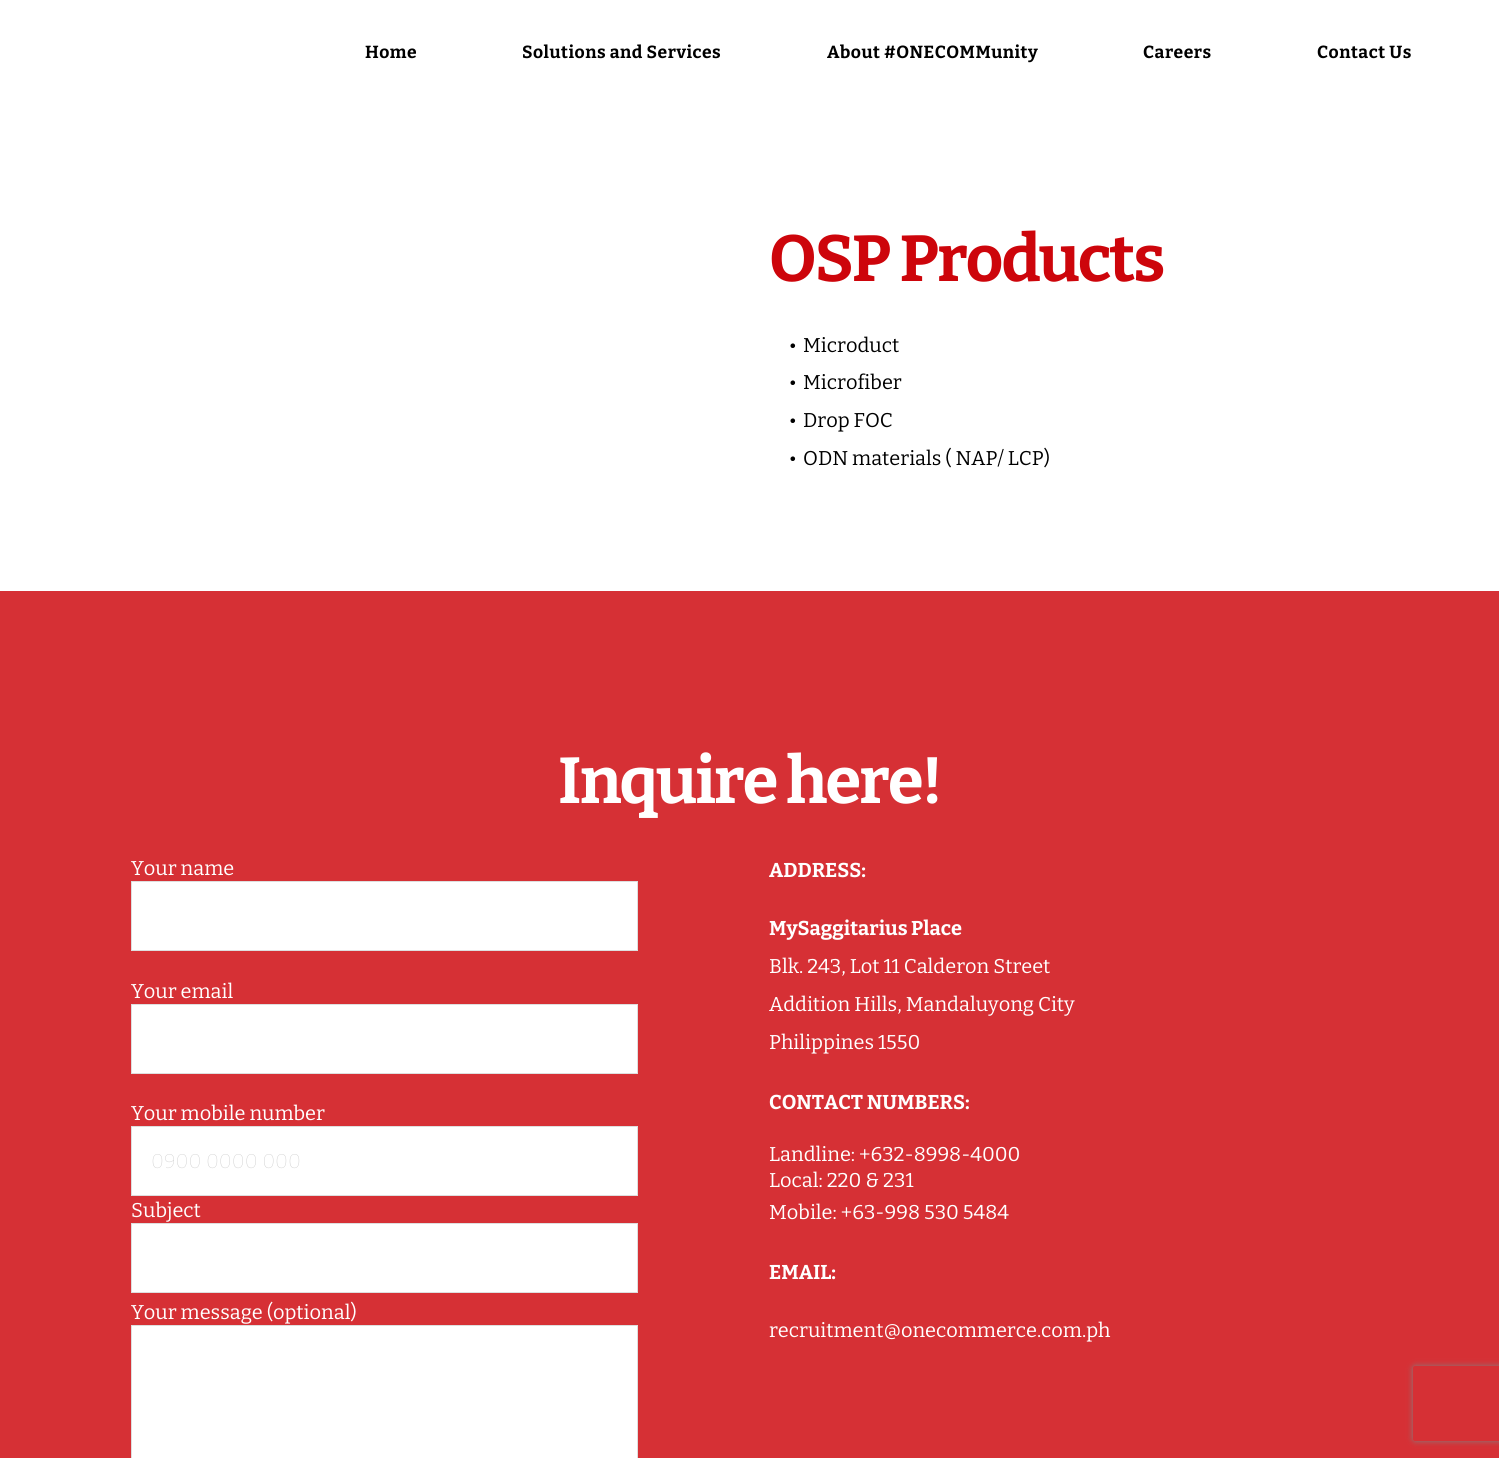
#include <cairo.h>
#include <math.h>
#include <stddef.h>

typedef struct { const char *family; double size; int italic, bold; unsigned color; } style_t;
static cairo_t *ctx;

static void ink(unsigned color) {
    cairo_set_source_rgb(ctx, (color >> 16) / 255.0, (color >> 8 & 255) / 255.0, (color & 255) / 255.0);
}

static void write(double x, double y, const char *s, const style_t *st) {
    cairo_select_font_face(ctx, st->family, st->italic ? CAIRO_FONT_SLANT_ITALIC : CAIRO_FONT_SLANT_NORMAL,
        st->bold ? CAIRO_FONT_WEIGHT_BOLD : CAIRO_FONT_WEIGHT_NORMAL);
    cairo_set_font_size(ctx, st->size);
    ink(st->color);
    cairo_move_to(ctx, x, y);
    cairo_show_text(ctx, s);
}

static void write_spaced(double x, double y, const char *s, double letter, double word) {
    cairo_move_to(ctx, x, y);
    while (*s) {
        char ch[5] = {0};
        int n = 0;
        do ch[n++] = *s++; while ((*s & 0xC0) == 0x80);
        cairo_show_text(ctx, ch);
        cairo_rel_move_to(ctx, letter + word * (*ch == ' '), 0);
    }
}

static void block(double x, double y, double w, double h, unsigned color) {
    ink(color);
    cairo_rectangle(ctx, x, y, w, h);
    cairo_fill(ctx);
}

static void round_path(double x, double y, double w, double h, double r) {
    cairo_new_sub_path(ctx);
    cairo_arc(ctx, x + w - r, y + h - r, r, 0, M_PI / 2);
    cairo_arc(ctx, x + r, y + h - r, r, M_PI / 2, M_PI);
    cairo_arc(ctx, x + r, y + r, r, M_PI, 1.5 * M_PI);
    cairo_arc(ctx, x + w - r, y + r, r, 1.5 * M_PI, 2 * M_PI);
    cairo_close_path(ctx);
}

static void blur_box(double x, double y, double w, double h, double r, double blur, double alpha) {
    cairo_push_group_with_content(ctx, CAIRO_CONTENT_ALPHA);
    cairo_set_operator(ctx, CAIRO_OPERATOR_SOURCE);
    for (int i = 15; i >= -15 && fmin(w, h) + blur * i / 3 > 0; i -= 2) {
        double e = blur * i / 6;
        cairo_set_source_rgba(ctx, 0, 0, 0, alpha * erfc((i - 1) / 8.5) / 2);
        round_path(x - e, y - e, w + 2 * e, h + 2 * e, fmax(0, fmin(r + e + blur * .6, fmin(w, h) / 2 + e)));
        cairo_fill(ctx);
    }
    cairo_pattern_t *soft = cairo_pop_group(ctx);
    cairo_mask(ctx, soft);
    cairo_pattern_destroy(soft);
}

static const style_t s1 = {"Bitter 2 Thin", 20, 0, 0, 0x000000};
static const style_t s2 = {"Bitter 2 Thin", 20, 0, 0, 0xffffff};
static const style_t s3 = {"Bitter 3 Thin", 20, 0, 0, 0xcccccc};
static const style_t s4 = {"Bitter Thin", 20, 0, 0, 0xffffff};

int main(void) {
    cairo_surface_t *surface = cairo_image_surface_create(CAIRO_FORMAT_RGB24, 1499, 1458);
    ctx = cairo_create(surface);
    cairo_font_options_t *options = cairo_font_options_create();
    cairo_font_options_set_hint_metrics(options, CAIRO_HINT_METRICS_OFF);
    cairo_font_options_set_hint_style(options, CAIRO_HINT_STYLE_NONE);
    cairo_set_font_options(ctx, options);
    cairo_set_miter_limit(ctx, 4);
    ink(0xffffff);
    cairo_paint(ctx);
    cairo_select_font_face(ctx, "Bitter Thin", CAIRO_FONT_SLANT_NORMAL, CAIRO_FONT_WEIGHT_NORMAL);
    cairo_set_font_size(ctx, 17.5);
    ink(0x000000);
    write_spaced(365, 58, "Home", 0.5, 0);
    write_spaced(522, 58, "Solutions and Services", 0.5, 0);
    write_spaced(827, 58, "About #ONECOMMunity", 0.5, 0);
    write_spaced(1143, 58, "Careers", 0.5, 0);
    write_spaced(1317, 58, "Contact Us", 0.5, 0);
    cairo_set_font_size(ctx, 65);
    ink(0xcd050b);
    write_spaced(769, 281, "OSP Products", -1.9, 0);
    write(789, 352, "•", &s1);
    write(803, 352, "Microduct", &s1);
    write(789, 389, "•", &s1);
    write(803, 389, "Microfiber", &s1);
    write(789, 427, "•", &s1);
    write(803, 427, "Drop FOC", &s1);
    write(789, 465, "•", &s1);
    write(803, 465, "ODN materials ( NAP/ LCP)", &s1);
    block(0, 591, 1499, 867, 0xd63035);
    cairo_select_font_face(ctx, "Bitter Thin", CAIRO_FONT_SLANT_NORMAL, CAIRO_FONT_WEIGHT_NORMAL);
    cairo_set_font_size(ctx, 65);
    ink(0xffffff);
    write_spaced(558, 803, "Inquire here!", -1.9, 0);
    write(131, 875, "Your name", &s2);
    cairo_rectangle(ctx, 131.5, 881.5, 506, 69);
    cairo_fill_preserve(ctx);
    ink(0xdedede);
    cairo_set_line_width(ctx, 1);
    cairo_stroke(ctx);
    write(131, 998, "Your email", &s2);
    cairo_rectangle(ctx, 131.5, 1004.5, 506, 69);
    cairo_fill_preserve(ctx);
    ink(0xdedede);
    cairo_stroke(ctx);
    write(131, 1120, "Your mobile number", &s2);
    cairo_rectangle(ctx, 131.5, 1126.5, 506, 69);
    cairo_fill_preserve(ctx);
    ink(0xdedede);
    cairo_stroke(ctx);
    write(151, 1168, "0900 0000 000", &s3);
    write(131, 1217, "Subject", &s2);
    cairo_rectangle(ctx, 131.5, 1223.5, 506, 69);
    cairo_fill_preserve(ctx);
    ink(0xdedede);
    cairo_stroke(ctx);
    write(131, 1319, "Your message (optional)", &s2);
    cairo_rectangle(ctx, 131.5, 1325.5, 506, 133);
    cairo_fill_preserve(ctx);
    ink(0xdedede);
    cairo_stroke(ctx);
    write(769, 877, "ADDRESS:", &s4);
    write(769, 935, "MySaggitarius Place", &s4);
    write(769, 973, "Blk. 243, Lot 11 Calderon Street", &s2);
    write(769, 1011, "Addition Hills, Mandaluyong City", &s2);
    write(769, 1049, "Philippines 1550", &s2);
    write(769, 1109, "CONTACT NUMBERS:", &s4);
    write(769, 1161, "Landline: +632-8998-4000", &s2);
    write(769, 1187, "Local: 220 & 231", &s2);
    write(769, 1219, "Mobile: +63-998 530 5484", &s2);
    write(769, 1279, "EMAIL:", &s4);
    write(769, 1337, "recruitment@onecommerce.com.ph", &s2);
    cairo_save(ctx);
    cairo_set_fill_rule(ctx, CAIRO_FILL_RULE_EVEN_ODD);
    cairo_new_path(ctx);
    cairo_move_to(ctx, 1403, 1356);
    cairo_line_to(ctx, 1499, 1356);
    cairo_line_to(ctx, 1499, 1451);
    cairo_line_to(ctx, 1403, 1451);
    cairo_close_path(ctx);
    cairo_move_to(ctx, 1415.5, 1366);
    cairo_line_to(ctx, 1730.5, 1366);
    cairo_curve_to(ctx, 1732, 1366, 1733, 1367, 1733, 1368.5);
    cairo_line_to(ctx, 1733, 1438.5);
    cairo_curve_to(ctx, 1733, 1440, 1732, 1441, 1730.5, 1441);
    cairo_line_to(ctx, 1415.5, 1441);
    cairo_curve_to(ctx, 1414, 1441, 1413, 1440, 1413, 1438.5);
    cairo_line_to(ctx, 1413, 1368.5);
    cairo_curve_to(ctx, 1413, 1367, 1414, 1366, 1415.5, 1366);
    cairo_close_path(ctx);
    cairo_clip(ctx);
    ink(0x808080);
    blur_box(1413, 1366, 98, 75, 2.5, 3, 1);
    cairo_restore(ctx);
    cairo_surface_write_to_png(surface, "screenshot.png");
    cairo_font_options_destroy(options);
    cairo_destroy(ctx);
    cairo_surface_destroy(surface);
    return 0;
}
